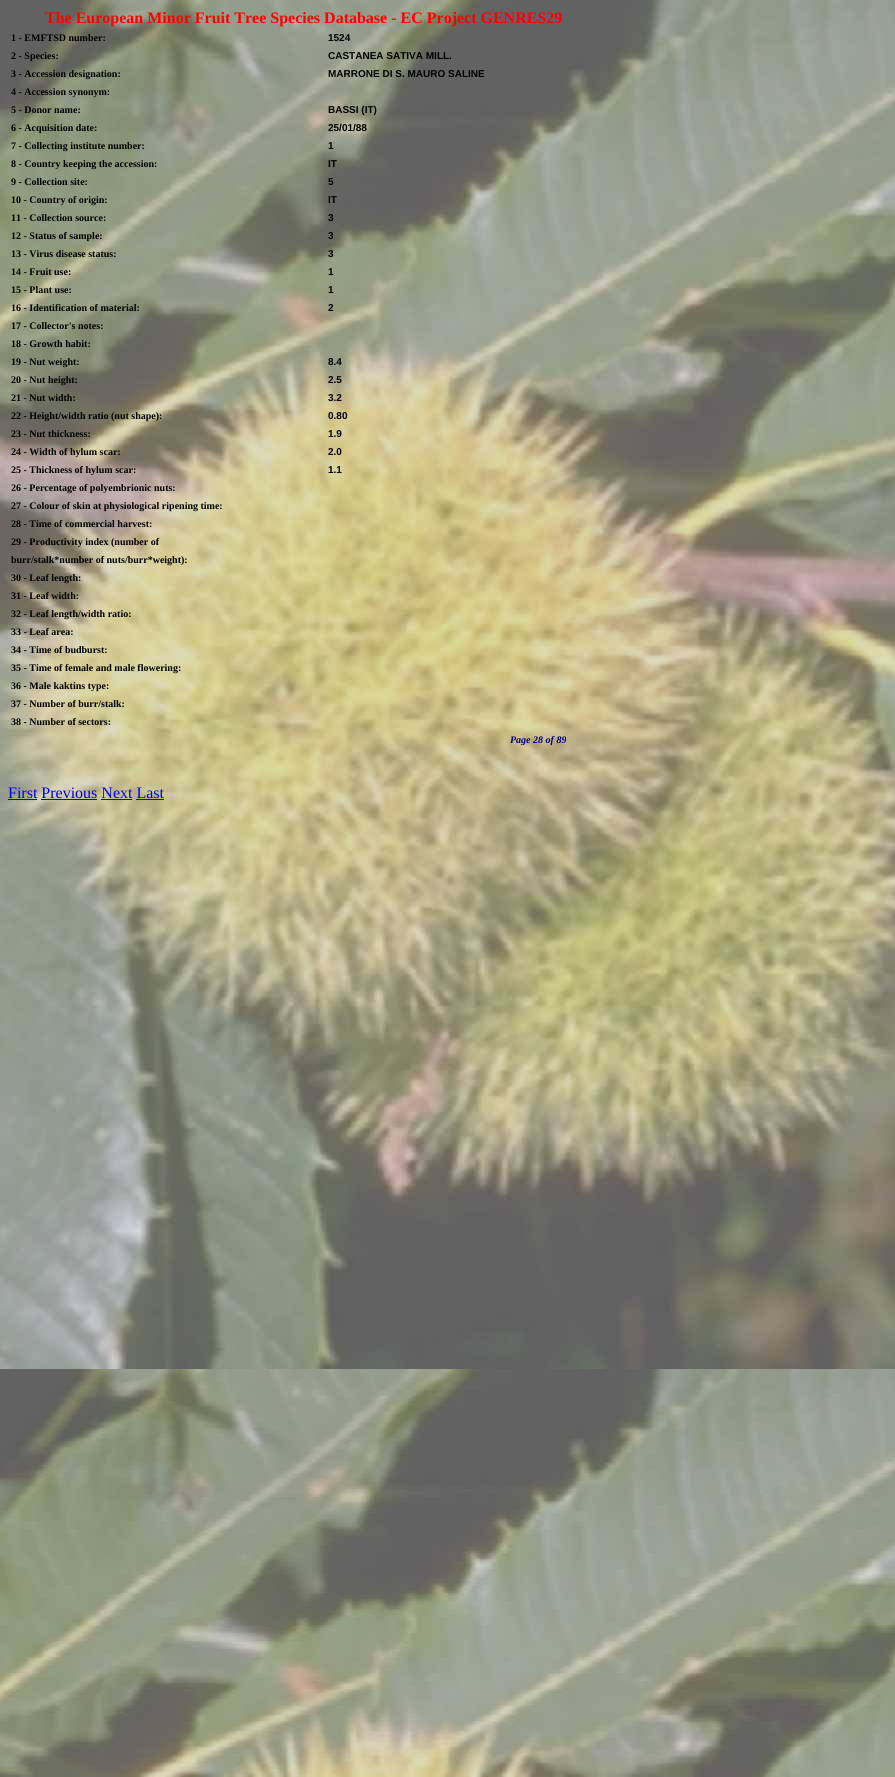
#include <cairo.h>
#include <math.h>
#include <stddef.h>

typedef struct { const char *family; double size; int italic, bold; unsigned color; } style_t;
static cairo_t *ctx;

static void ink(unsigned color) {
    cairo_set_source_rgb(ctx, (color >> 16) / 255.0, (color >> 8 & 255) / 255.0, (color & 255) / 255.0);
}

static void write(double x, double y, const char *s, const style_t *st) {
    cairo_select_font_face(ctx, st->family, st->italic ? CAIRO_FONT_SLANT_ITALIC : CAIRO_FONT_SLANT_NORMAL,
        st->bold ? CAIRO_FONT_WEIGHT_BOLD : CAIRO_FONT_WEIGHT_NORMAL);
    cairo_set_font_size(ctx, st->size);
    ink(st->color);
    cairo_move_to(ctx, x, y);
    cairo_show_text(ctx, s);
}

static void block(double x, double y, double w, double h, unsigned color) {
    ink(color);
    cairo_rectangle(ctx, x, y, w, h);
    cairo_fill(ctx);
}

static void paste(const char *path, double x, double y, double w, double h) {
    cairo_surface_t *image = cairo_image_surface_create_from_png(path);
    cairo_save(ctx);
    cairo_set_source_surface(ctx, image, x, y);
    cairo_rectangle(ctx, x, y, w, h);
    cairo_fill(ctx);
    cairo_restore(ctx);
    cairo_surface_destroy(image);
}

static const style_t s1 = {"Liberation Serif", 16, 0, 1, 0xff0000};
static const style_t s2 = {"Liberation Serif", 10, 0, 1, 0x000000};
static const style_t s3 = {"Liberation Sans", 10, 0, 1, 0x000000};
static const style_t s4 = {"Liberation Serif", 10, 1, 1, 0x000080};
static const style_t s5 = {"Liberation Serif", 16, 0, 0, 0x0000ee};

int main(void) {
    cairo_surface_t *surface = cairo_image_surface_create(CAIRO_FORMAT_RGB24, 895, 1777);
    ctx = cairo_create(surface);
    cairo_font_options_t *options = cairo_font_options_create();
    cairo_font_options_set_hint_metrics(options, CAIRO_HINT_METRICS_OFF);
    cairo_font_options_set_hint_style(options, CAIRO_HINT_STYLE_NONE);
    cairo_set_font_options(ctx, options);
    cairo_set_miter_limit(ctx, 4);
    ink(0xffffff);
    cairo_paint(ctx);
    paste("pic1.png", 0, 0, 895, 1777);
    write(45, 23, "The European Minor Fruit Tree Species Database - EC Project GENRES29", &s1);
    write(11, 41, "1 - EMFTSD number:", &s2);
    write(328, 41, "1524", &s3);
    write(11, 59, "2 - Species:", &s2);
    write(328, 59, "CASTANEA SATIVA MILL.", &s3);
    write(11, 77, "3 - Accession designation:", &s2);
    write(328, 77, "MARRONE DI S. MAURO SALINE", &s3);
    write(11, 95, "4 - Accession synonym:", &s2);
    write(11, 113, "5 - Donor name:", &s2);
    write(328, 113, "BASSI (IT)", &s3);
    write(11, 131, "6 - Acquisition date:", &s2);
    write(328, 131, "25/01/88", &s3);
    write(11, 149, "7 - Collecting institute number:", &s2);
    write(328, 149, "1", &s3);
    write(11, 167, "8 - Country keeping the accession:", &s2);
    write(328, 167, "IT", &s3);
    write(11, 185, "9 - Collection site:", &s2);
    write(328, 185, "5", &s3);
    write(11, 203, "10 - Country of origin:", &s2);
    write(328, 203, "IT", &s3);
    write(11, 221, "11 - Collection source:", &s2);
    write(328, 221, "3", &s3);
    write(11, 239, "12 - Status of sample:", &s2);
    write(328, 239, "3", &s3);
    write(11, 257, "13 - Virus disease status:", &s2);
    write(328, 257, "3", &s3);
    write(11, 275, "14 - Fruit use:", &s2);
    write(328, 275, "1", &s3);
    write(11, 293, "15 - Plant use:", &s2);
    write(328, 293, "1", &s3);
    write(11, 311, "16 - Identification of material:", &s2);
    write(328, 311, "2", &s3);
    write(11, 329, "17 - Collector's notes:", &s2);
    write(11, 347, "18 - Growth habit:", &s2);
    write(11, 365, "19 - Nut weight:", &s2);
    write(328, 365, "8.4", &s3);
    write(11, 383, "20 - Nut height:", &s2);
    write(328, 383, "2.5", &s3);
    write(11, 401, "21 - Nut width:", &s2);
    write(328, 401, "3.2", &s3);
    write(11, 419, "22 - Height/width ratio (nut shape):", &s2);
    write(328, 419, "0.80", &s3);
    write(11, 437, "23 - Nut thickness:", &s2);
    write(328, 437, "1.9", &s3);
    write(11, 455, "24 - Width of hylum scar:", &s2);
    write(328, 455, "2.0", &s3);
    write(11, 473, "25 - Thickness of hylum scar:", &s2);
    write(328, 473, "1.1", &s3);
    write(11, 491, "26 - Percentage of polyembrionic nuts:", &s2);
    write(11, 509, "27 - Colour of skin at physiological ripening time:", &s2);
    write(11, 527, "28 - Time of commercial harvest:", &s2);
    write(11, 545, "29 - Productivity index (number of", &s2);
    write(11, 563, "burr/stalk*number of nuts/burr*weight):", &s2);
    write(11, 581, "30 - Leaf length:", &s2);
    write(11, 599, "31 - Leaf width:", &s2);
    write(11, 617, "32 - Leaf length/width ratio:", &s2);
    write(11, 635, "33 - Leaf area:", &s2);
    write(11, 653, "34 - Time of budburst:", &s2);
    write(11, 671, "35 - Time of female and male flowering:", &s2);
    write(11, 689, "36 - Male kaktins type:", &s2);
    write(11, 707, "37 - Number of burr/stalk:", &s2);
    write(11, 725, "38 - Number of sectors:", &s2);
    write(510, 743, "Page 28 of 89", &s4);
    write(8, 798, "First Previous Next Last", &s5);
    block(8, 799, 29, 1, 0x0000ee);
    block(41, 799, 56, 1, 0x0000ee);
    block(101, 799, 31, 1, 0x0000ee);
    block(136, 799, 28, 1, 0x0000ee);
    cairo_surface_write_to_png(surface, "screenshot.png");
    cairo_font_options_destroy(options);
    cairo_destroy(ctx);
    cairo_surface_destroy(surface);
    return 0;
}
